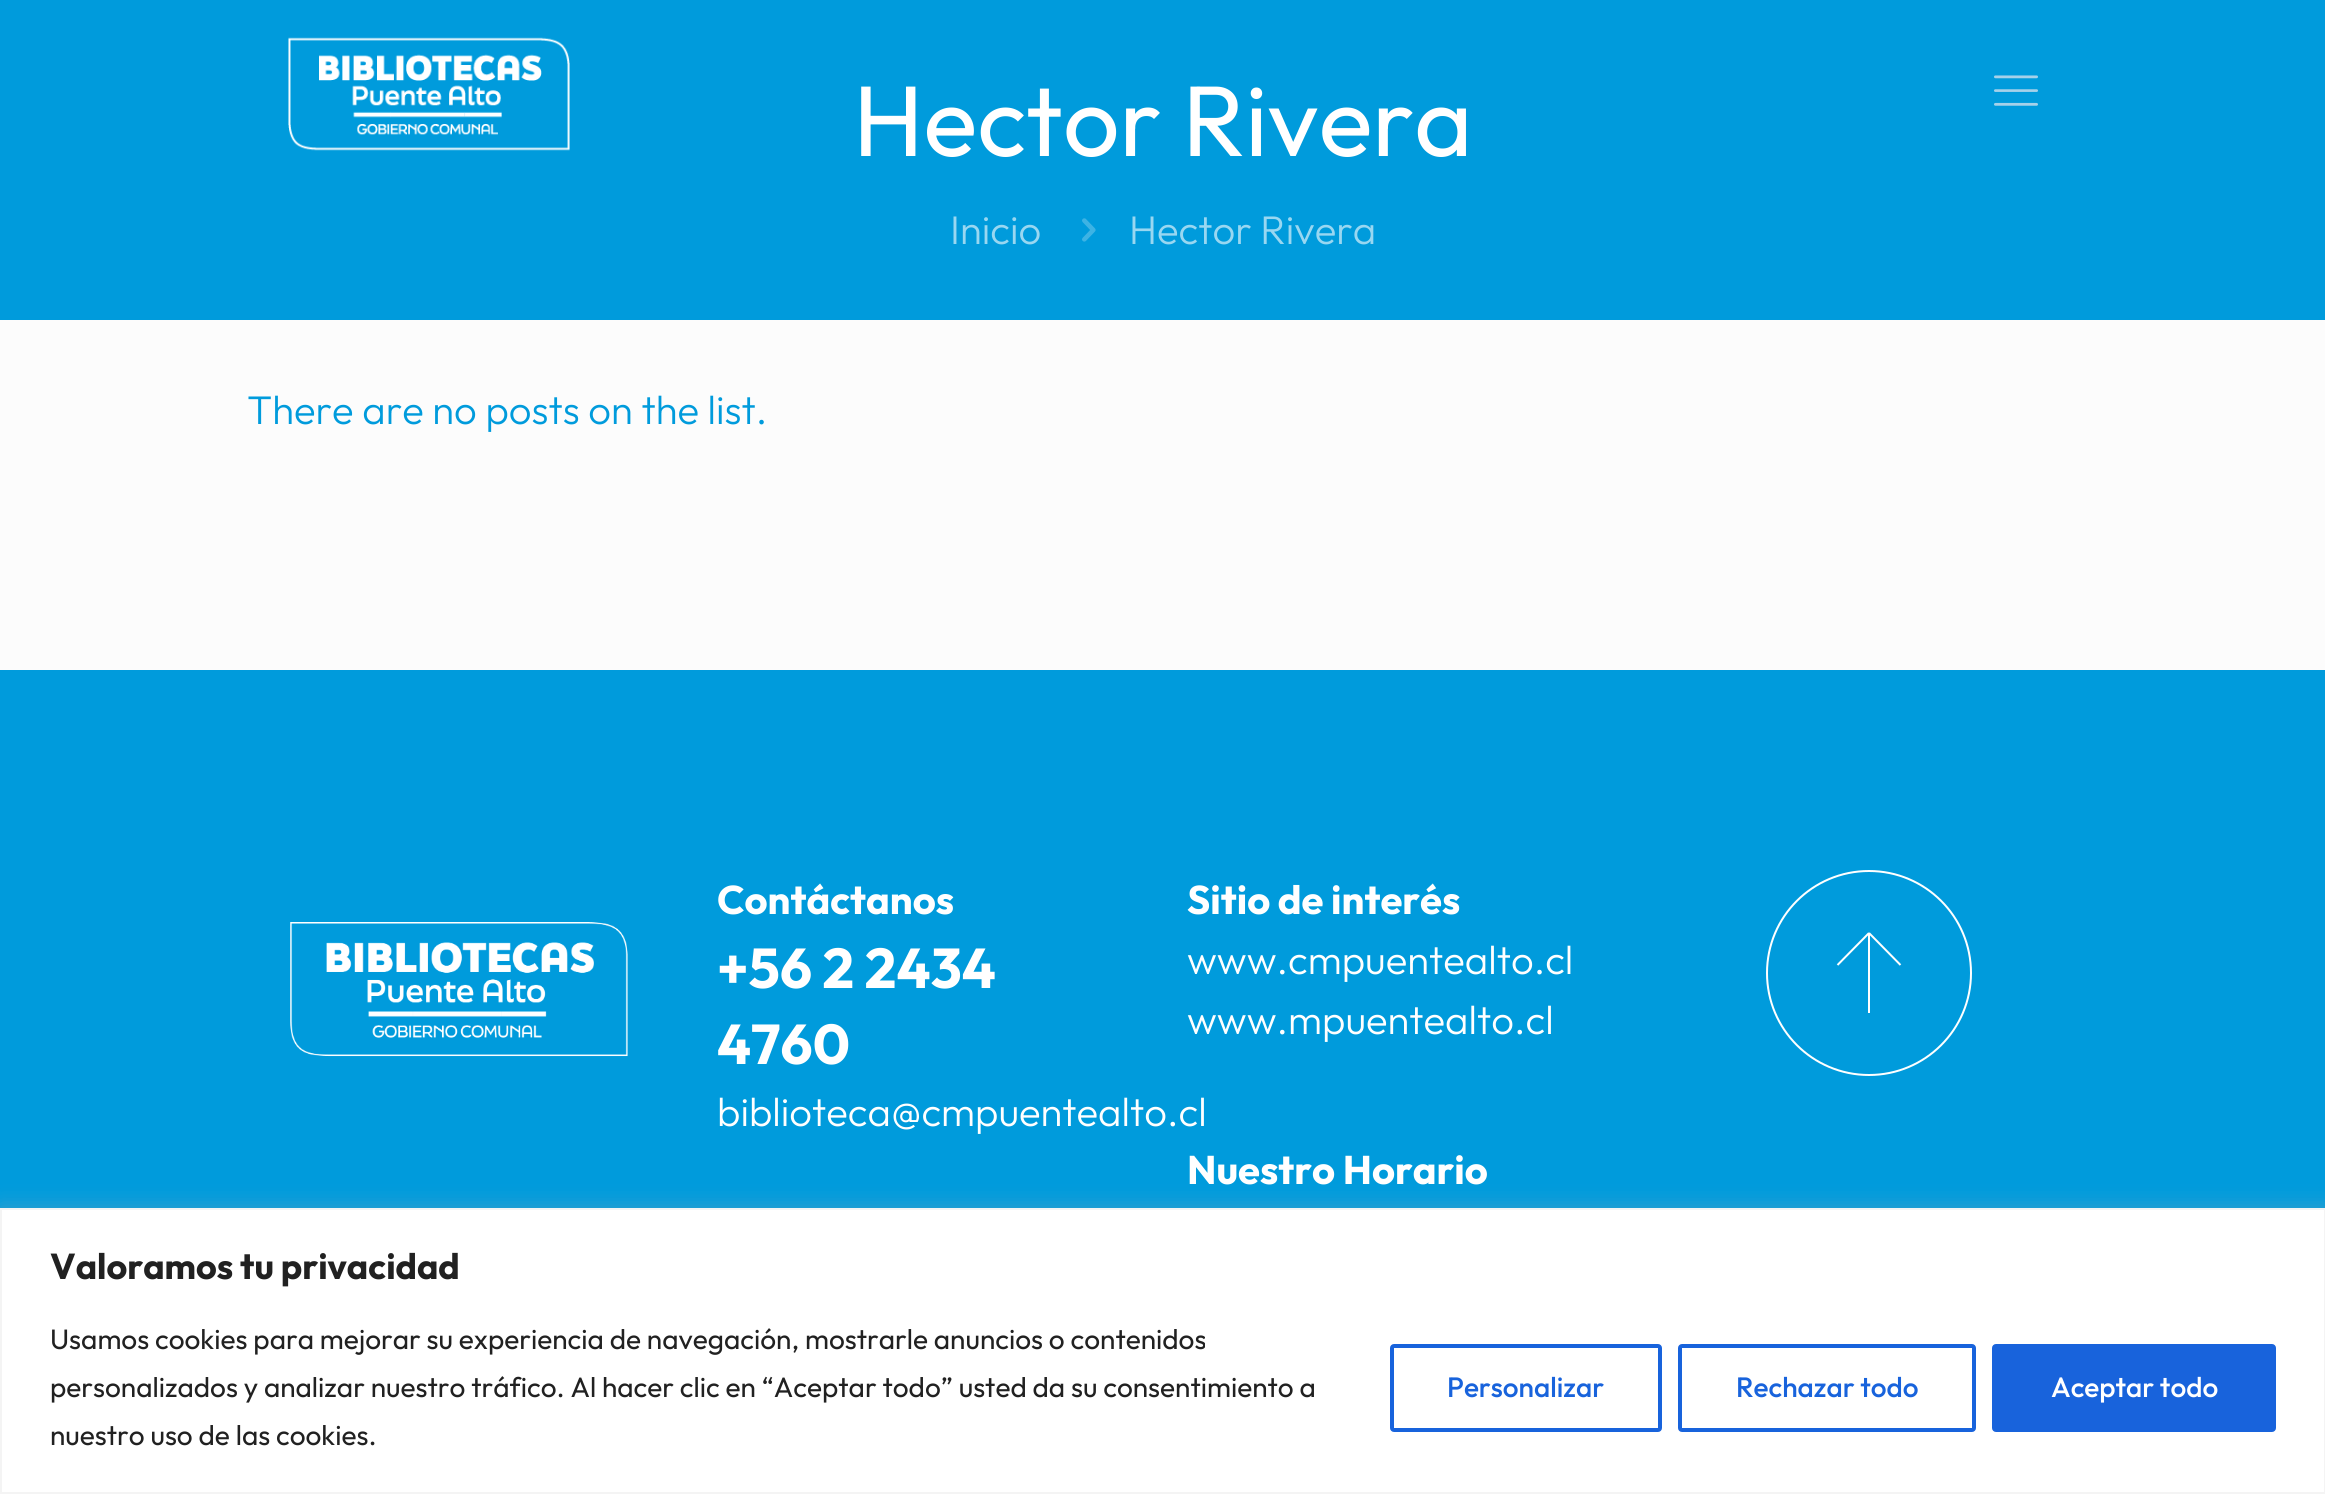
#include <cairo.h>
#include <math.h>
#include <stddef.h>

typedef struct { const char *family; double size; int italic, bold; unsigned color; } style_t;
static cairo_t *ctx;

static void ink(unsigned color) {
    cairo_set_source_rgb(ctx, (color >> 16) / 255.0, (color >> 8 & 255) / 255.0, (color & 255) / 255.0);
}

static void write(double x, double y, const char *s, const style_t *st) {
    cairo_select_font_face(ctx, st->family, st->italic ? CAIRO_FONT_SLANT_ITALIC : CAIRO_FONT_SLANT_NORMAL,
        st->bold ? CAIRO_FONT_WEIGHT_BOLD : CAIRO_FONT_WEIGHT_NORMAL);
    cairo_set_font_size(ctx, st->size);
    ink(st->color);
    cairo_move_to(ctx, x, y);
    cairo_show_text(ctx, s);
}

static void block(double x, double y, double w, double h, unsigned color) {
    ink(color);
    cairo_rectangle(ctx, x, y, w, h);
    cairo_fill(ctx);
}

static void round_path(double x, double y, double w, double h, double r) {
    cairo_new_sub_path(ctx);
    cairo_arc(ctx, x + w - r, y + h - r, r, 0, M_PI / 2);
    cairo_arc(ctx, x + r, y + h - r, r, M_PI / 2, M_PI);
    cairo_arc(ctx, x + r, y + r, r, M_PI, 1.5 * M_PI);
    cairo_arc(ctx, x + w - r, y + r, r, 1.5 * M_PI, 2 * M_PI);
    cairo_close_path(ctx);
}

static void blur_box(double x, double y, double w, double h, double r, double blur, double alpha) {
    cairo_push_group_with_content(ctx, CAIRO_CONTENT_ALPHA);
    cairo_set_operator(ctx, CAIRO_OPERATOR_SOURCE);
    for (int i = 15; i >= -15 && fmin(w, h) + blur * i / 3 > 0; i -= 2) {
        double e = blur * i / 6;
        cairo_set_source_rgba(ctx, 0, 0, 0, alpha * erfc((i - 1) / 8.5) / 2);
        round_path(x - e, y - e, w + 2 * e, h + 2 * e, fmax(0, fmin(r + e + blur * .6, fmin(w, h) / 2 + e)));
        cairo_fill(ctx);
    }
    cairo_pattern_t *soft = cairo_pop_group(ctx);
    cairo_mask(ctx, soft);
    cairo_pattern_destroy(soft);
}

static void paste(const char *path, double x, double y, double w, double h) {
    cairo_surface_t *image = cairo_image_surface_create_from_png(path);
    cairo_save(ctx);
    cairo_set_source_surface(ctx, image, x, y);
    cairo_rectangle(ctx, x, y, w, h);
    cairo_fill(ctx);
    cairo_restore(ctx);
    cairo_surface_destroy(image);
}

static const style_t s1 = {"Outfit", 100, 0, 0, 0xffffff};
static const style_t s2 = {"Outfit Light", 40, 0, 0, 0x99d7f1};
static const style_t s3 = {"Outfit Light", 40, 0, 0, 0x009bdc};
static const style_t s4 = {"Outfit", 40, 0, 1, 0xffffff};
static const style_t s5 = {"Outfit", 56, 0, 1, 0xffffff};
static const style_t s6 = {"Outfit Light", 40, 0, 0, 0xffffff};
static const style_t s7 = {"Outfit", 36, 0, 1, 0x212121};
static const style_t s8 = {"Outfit", 28, 0, 0, 0x212121};
static const style_t s9 = {"Outfit Medium", 28, 0, 0, 0x1863dc};
static const style_t s10 = {"Outfit Medium", 28, 0, 0, 0xffffff};

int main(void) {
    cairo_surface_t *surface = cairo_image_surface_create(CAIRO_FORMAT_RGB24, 2325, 1494);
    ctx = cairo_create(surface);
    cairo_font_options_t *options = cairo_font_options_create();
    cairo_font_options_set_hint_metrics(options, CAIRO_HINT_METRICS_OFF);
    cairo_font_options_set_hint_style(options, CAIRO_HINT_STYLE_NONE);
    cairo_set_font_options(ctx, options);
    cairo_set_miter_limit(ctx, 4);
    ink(0xfcfcfc);
    cairo_paint(ctx);
    block(0, 0, 2325, 320, 0x009bdc);
    paste("pic1.png", 288, 37, 282, 114);
    paste("pic2.png", 1994, 75, 44, 31);
    write(853, 156, "Hector Rivera", &s1);
    write(950, 244, "Inicio", &s2);
    paste("pic3.png", 1082, 218, 14, 24);
    write(1129, 244, "Hector Rivera", &s2);
    write(247, 424, "There are no posts on the list.", &s3);
    block(0, 670, 2325, 538, 0x009bdc);
    paste("pic4.png", 290, 922, 338, 135);
    write(717, 914, "Contáctanos", &s4);
    write(717, 988, "+56 2 2434", &s5);
    write(717, 1064, "4760", &s5);
    write(717, 1126, "biblioteca@cmpuentealto.cl", &s6);
    write(1187, 914, "Sitio de interés", &s4);
    write(1187, 974, "www.cmpuentealto.cl", &s6);
    write(1187, 1034, "www.mpuentealto.cl", &s6);
    write(1187, 1184, "Nuestro Horario", &s4);
    cairo_new_path(ctx);
    cairo_move_to(ctx, 1837.5, 965);
    cairo_line_to(ctx, 1869, 933);
    cairo_move_to(ctx, 1869, 933);
    cairo_line_to(ctx, 1900.5, 965);
    cairo_move_to(ctx, 1869, 933);
    cairo_line_to(ctx, 1869, 1013);
    cairo_stroke(ctx);
    cairo_arc(ctx, 1869, 973, 102, 0, 2 * M_PI);
    cairo_stroke(ctx);
    ink(0xacabab);
    blur_box(0, 1206, 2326, 286, 0, 10, 0.3);
    ink(0xffffff);
    cairo_rectangle(ctx, 1, 1209, 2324, 284);
    cairo_fill_preserve(ctx);
    ink(0xf4f4f4);
    cairo_stroke(ctx);
    write(50, 1279, "Valoramos tu privacidad", &s7);
    write(50, 1349, "Usamos cookies para mejorar su experiencia de navegación, mostrarle anuncios o contenidos", &s8);
    write(50, 1397, "personalizados y analizar nuestro tráfico. Al hacer clic en “Aceptar todo” usted da su consentimiento a", &s8);
    write(50, 1445, "nuestro uso de las cookies.", &s8);
    round_path(1392, 1346, 268, 84, 2);
    ink(0x1863dc);
    cairo_set_line_width(ctx, 4);
    cairo_stroke(ctx);
    write(1447, 1397, "Personalizar", &s9);
    round_path(1680, 1346, 294, 84, 2);
    cairo_stroke(ctx);
    write(1736, 1397, "Rechazar todo", &s9);
    round_path(1994, 1346, 280, 84, 2);
    cairo_fill_preserve(ctx);
    cairo_stroke(ctx);
    write(2051, 1397, "Aceptar todo", &s10);
    cairo_surface_write_to_png(surface, "screenshot.png");
    cairo_font_options_destroy(options);
    cairo_destroy(ctx);
    cairo_surface_destroy(surface);
    return 0;
}
